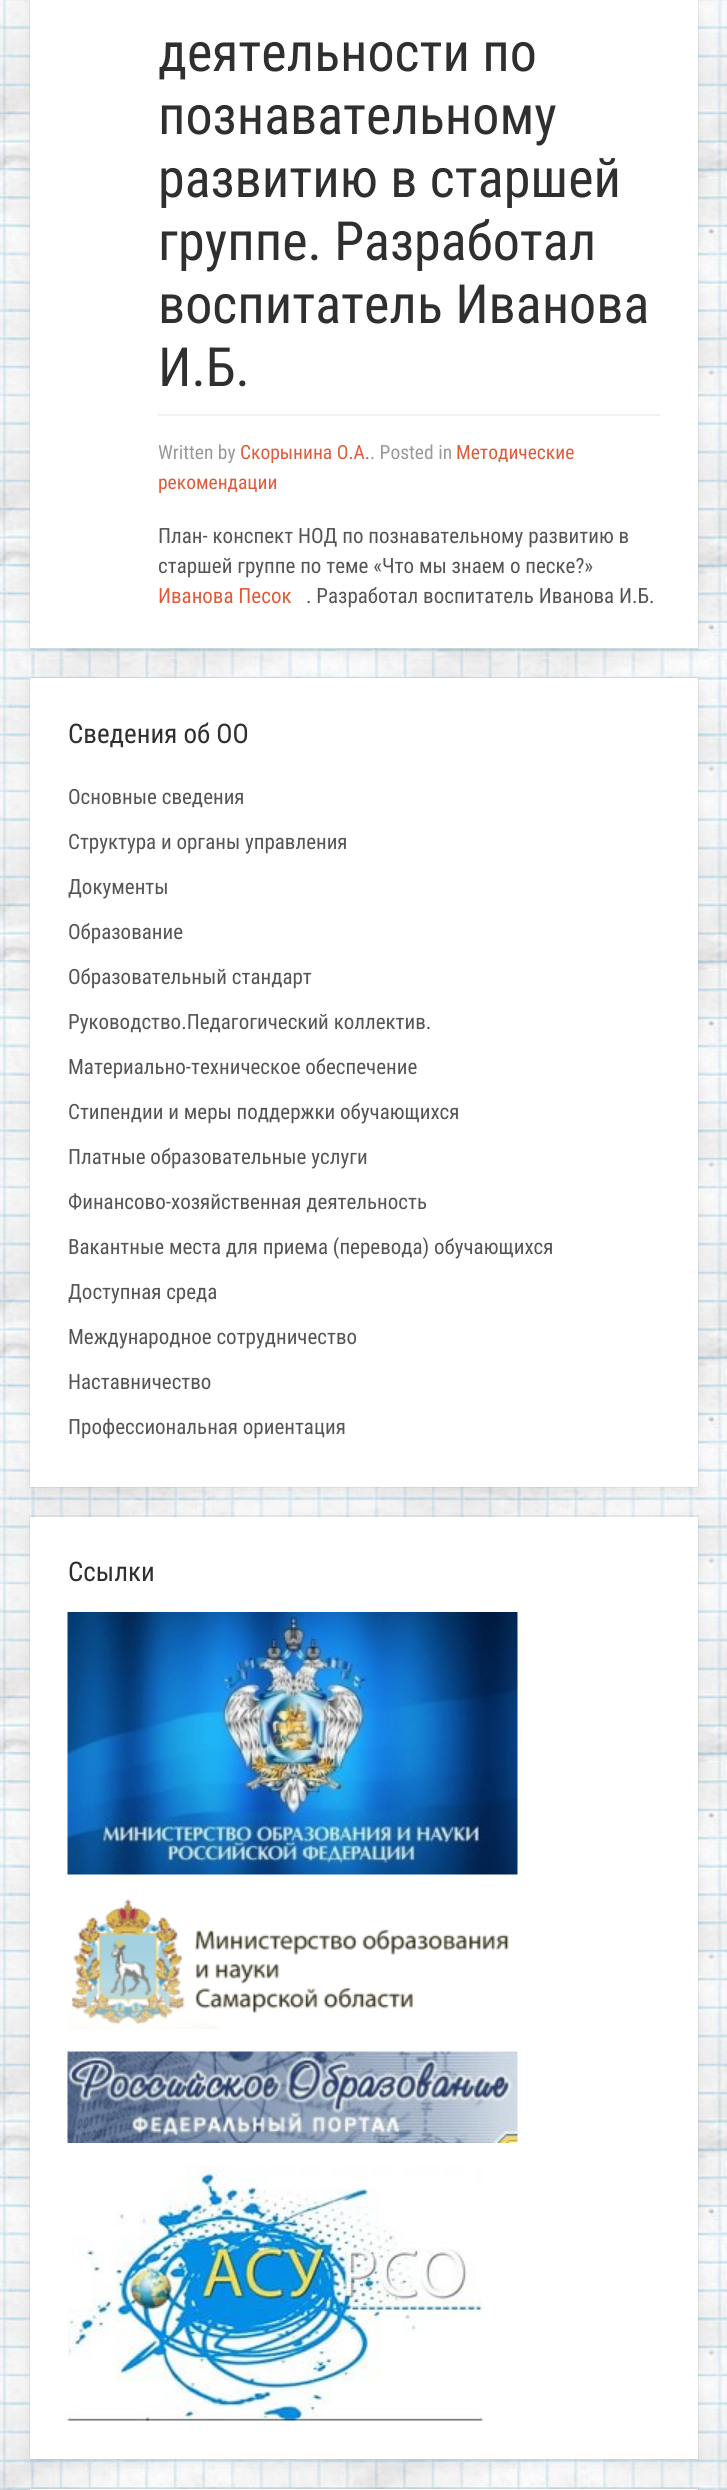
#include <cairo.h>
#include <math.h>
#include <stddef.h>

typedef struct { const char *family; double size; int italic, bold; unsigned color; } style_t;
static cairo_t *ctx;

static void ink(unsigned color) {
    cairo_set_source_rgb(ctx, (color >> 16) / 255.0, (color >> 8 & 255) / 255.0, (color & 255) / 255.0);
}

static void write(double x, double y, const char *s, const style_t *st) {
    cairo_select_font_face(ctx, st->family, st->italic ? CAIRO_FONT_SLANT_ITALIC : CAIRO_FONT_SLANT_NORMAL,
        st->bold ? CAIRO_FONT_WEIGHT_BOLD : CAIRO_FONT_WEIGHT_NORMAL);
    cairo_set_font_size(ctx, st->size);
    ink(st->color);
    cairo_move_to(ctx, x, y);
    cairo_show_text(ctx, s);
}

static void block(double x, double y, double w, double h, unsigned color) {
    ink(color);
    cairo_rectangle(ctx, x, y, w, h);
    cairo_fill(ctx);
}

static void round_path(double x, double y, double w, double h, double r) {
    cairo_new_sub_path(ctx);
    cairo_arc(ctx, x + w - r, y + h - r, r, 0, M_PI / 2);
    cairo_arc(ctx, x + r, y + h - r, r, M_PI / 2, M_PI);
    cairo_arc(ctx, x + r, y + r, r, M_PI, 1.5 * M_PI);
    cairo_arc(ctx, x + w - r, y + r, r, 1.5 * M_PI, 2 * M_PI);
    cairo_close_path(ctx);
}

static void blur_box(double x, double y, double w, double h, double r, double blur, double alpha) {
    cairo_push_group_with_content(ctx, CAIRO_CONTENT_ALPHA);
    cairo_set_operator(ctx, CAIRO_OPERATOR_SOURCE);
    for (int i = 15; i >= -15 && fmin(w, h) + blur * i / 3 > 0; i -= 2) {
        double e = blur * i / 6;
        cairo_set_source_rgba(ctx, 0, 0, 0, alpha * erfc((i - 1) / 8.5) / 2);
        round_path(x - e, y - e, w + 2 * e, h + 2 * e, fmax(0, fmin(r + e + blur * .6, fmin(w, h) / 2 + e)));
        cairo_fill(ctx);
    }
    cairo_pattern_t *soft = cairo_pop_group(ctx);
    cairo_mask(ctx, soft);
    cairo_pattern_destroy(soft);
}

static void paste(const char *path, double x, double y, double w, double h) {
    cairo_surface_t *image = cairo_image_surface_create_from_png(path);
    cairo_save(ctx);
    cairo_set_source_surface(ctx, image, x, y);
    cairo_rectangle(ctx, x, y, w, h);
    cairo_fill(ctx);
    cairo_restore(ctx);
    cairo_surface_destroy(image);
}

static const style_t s1 = {"Roboto Condensed", 54, 0, 0, 0x2f2f2f};
static const style_t s2 = {"Roboto Condensed", 19.5, 0, 0, 0x999999};
static const style_t s3 = {"Roboto Condensed", 19.5, 0, 0, 0xe05b3a};
static const style_t s4 = {"Roboto Condensed", 21, 0, 0, 0x555555};
static const style_t s5 = {"Roboto Condensed", 21, 0, 0, 0xe05b3a};
static const style_t s6 = {"Roboto Condensed", 27, 0, 0, 0x2f2f2f};

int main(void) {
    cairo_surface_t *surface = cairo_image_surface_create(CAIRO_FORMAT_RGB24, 727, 2490);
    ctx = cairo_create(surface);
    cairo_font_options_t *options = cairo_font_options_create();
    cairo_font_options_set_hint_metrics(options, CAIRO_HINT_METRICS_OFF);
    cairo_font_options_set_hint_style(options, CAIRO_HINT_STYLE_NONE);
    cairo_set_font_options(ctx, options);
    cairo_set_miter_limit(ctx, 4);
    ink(0xffffff);
    cairo_paint(ctx);
    paste("pic1.png", 0, 0, 727, 2490);
    ink(0x000000);
    blur_box(30, -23, 668, 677, 0, 7.5, 0.06);
    cairo_rectangle(ctx, 30, -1, 668, 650);
    cairo_set_source_rgba(ctx, 0, 0, 0, 0.06);
    cairo_stroke(ctx);
    block(30, 0, 668, 648, 0xffffff);
    block(158, 414, 502, 2, 0xf0f0f0);
    write(158, 71, "деятельности по", &s1);
    write(158, 134, "познавательному", &s1);
    write(158, 197, "развитию в старшей", &s1);
    write(158, 260, "группе. Разработал", &s1);
    write(158, 323, "воспитатель Иванова", &s1);
    write(158, 386, "И.Б.", &s1);
    write(158, 459, "Written by", &s2);
    write(240, 459, "Скорынина О.А.", &s3);
    write(370, 459, ". Posted in", &s2);
    write(456, 459, "Методические", &s3);
    write(158, 489, "рекомендации", &s3);
    write(158, 543, "План- конспект НОД по познавательному развитию в", &s4);
    write(158, 573, "старшей группе по теме «Что мы знаем о песке?»", &s4);
    write(158, 603, "Иванова Песок", &s5);
    write(306, 603, ". Разработал воспитатель Иванова И.Б.", &s4);
    ink(0x000000);
    blur_box(30, 684, 668, 809, 0, 7.5, 0.06);
    cairo_rectangle(ctx, 30, 678, 668, 809);
    cairo_set_source_rgba(ctx, 0, 0, 0, 0.06);
    cairo_stroke(ctx);
    block(30, 678, 668, 809, 0xffffff);
    write(68, 743, "Сведения об ОО", &s6);
    write(68, 804, "Основные сведения", &s4);
    write(68, 849, "Структура и органы управления", &s4);
    write(68, 894, "Документы", &s4);
    write(68, 939, "Образование", &s4);
    write(68, 984, "Образовательный стандарт", &s4);
    write(68, 1029, "Руководство.Педагогический коллектив.", &s4);
    write(68, 1074, "Материально-техническое обеспечение", &s4);
    write(68, 1119, "Стипендии и меры поддержки обучающихся", &s4);
    write(68, 1164, "Платные образовательные услуги", &s4);
    write(68, 1209, "Финансово-хозяйственная деятельность", &s4);
    write(68, 1254, "Вакантные места для приема (перевода) обучающихся", &s4);
    write(68, 1299, "Доступная среда", &s4);
    write(68, 1344, "Международное сотрудничество", &s4);
    write(68, 1389, "Наставничество", &s4);
    write(68, 1434, "Профессиональная ориентация", &s4);
    ink(0x000000);
    blur_box(30, 1523, 668, 942, 0, 7.5, 0.06);
    cairo_rectangle(ctx, 30, 1516, 668, 943);
    cairo_set_source_rgba(ctx, 0, 0, 0, 0.06);
    cairo_stroke(ctx);
    block(30, 1517, 668, 942, 0xffffff);
    write(68, 1581, "Ссылки", &s6);
    paste("pic2.png", 67, 1612, 451, 263);
    paste("pic3.png", 68, 1898, 441, 131);
    paste("pic4.png", 67, 2051, 451, 92);
    paste("pic5.png", 67, 2165, 416, 256);
    cairo_rectangle(ctx, 30, 2488, 668, 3);
    cairo_set_source_rgba(ctx, 0, 0, 0, 0.06);
    cairo_stroke(ctx);
    block(30, 2489, 668, 1, 0xffffff);
    cairo_surface_write_to_png(surface, "screenshot.png");
    cairo_font_options_destroy(options);
    cairo_destroy(ctx);
    cairo_surface_destroy(surface);
    return 0;
}
